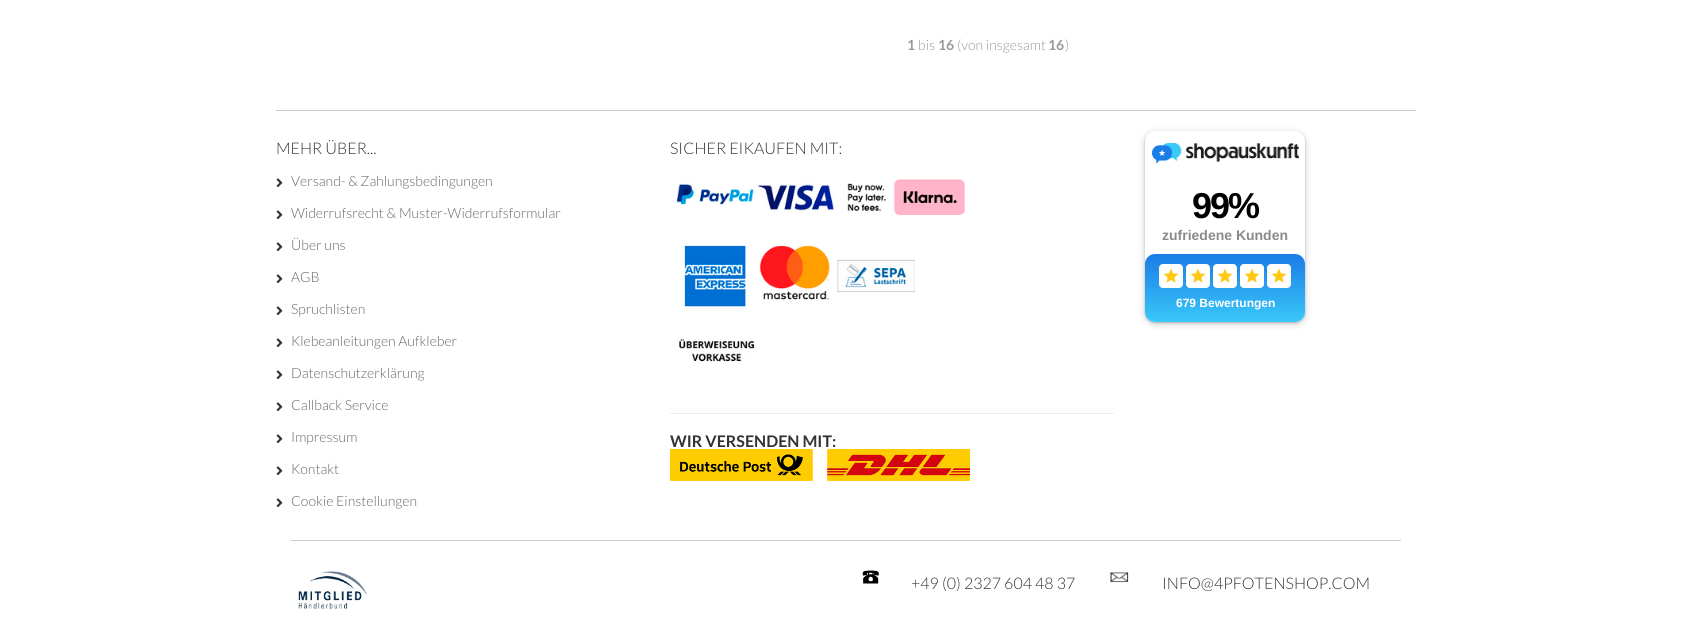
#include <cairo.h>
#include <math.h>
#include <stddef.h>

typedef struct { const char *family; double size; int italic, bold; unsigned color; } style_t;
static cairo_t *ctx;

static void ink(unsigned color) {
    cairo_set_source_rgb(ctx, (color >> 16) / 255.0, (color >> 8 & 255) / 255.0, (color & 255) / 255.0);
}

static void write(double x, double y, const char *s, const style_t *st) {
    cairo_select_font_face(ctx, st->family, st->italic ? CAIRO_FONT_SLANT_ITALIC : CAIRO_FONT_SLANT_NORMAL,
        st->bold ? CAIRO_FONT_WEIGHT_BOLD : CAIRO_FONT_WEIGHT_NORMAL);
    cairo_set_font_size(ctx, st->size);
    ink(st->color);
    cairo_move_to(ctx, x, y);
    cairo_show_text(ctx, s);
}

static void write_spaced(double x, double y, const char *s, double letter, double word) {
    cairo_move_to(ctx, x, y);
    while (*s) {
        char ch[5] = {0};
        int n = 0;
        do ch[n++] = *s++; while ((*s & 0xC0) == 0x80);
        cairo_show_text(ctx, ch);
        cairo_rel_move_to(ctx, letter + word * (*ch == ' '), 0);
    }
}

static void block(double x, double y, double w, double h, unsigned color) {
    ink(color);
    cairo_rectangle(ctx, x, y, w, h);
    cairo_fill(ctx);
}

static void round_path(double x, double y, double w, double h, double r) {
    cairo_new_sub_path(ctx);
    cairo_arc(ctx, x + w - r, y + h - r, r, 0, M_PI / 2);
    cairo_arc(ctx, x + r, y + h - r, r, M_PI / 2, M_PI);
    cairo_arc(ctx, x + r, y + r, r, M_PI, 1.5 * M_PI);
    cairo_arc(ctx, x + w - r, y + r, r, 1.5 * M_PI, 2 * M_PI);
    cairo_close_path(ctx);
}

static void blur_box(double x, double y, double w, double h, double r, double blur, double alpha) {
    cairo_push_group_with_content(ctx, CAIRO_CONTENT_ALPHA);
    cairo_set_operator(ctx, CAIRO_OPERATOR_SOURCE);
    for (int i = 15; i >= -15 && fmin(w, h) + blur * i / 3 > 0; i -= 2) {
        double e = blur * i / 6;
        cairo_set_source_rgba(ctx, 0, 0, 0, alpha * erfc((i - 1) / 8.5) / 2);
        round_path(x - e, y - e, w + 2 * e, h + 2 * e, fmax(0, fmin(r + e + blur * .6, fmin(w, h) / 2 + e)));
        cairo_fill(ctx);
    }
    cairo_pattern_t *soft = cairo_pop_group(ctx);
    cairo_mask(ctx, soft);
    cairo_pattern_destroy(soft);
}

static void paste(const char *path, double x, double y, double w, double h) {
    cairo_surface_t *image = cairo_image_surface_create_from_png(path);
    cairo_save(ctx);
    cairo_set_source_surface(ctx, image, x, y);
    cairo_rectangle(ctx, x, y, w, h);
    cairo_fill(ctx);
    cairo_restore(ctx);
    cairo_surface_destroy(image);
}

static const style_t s1 = {"Lato", 14, 0, 1, 0x999999};
static const style_t s2 = {"Lato Light", 14, 0, 0, 0x999999};
static const style_t s3 = {"Lato Light", 16, 0, 0, 0x333333};
static const style_t s4 = {"Lato Light", 14, 0, 0, 0x666666};
static const style_t s5 = {"Lato", 16, 0, 1, 0x333333};
static const style_t s6 = {"Liberation Sans", 14, 0, 1, 0x8a8a8a};
static const style_t s7 = {"Liberation Sans", 12, 0, 1, 0xffffff};

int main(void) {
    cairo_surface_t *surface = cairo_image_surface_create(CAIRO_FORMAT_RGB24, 1691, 622);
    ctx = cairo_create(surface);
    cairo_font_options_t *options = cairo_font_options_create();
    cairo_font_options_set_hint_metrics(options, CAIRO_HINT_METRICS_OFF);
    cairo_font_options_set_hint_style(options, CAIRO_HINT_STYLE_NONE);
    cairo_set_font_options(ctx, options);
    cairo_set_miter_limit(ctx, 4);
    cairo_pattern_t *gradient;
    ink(0xffffff);
    cairo_paint(ctx);
    write(907, 50, "1", &s1);
    write(918, 50, "bis", &s2);
    write(938, 50, "16", &s1);
    write(957, 50, "(von insgesamt", &s2);
    write(1048, 50, "16", &s1);
    write(1065, 50, ")", &s2);
    block(276, 110, 1140, 1, 0xcccccc);
    write(276, 154, "MEHR ÜBER...", &s3);
    paste("pic1.png", 276, 178, 7, 10);
    write(291, 186, "Versand- & Zahlungsbedingungen", &s4);
    paste("pic1.png", 276, 210, 7, 10);
    write(291, 218, "Widerrufsrecht & Muster-Widerrufsformular", &s4);
    paste("pic1.png", 276, 242, 7, 10);
    write(291, 250, "Über uns", &s4);
    paste("pic1.png", 276, 274, 7, 10);
    write(291, 282, "AGB", &s4);
    paste("pic1.png", 276, 306, 7, 10);
    write(291, 314, "Spruchlisten", &s4);
    paste("pic1.png", 276, 338, 7, 10);
    write(291, 346, "Klebeanleitungen Aufkleber", &s4);
    paste("pic1.png", 276, 370, 7, 10);
    write(291, 378, "Datenschutzerklärung", &s4);
    paste("pic1.png", 276, 402, 7, 10);
    write(291, 410, "Callback Service", &s4);
    paste("pic1.png", 276, 434, 7, 10);
    write(291, 442, "Impressum", &s4);
    paste("pic1.png", 276, 466, 7, 10);
    write(291, 474, "Kontakt", &s4);
    paste("pic1.png", 276, 498, 7, 10);
    write(291, 506, "Cookie Einstellungen", &s4);
    write(670, 154, "SICHER EIKAUFEN MIT:", &s3);
    paste("pic2.png", 677, 179, 288, 183);
    block(670, 413, 444, 1, 0xeeeeee);
    write(670, 447, "WIR VERSENDEN MIT:", &s5);
    paste("pic3.png", 670, 449, 300, 32);
    ink(0x3c4043);
    blur_box(1143, 131, 164, 195, 12, 3, 0.15);
    blur_box(1145, 132, 160, 191, 10, 1, 0.3);
    ink(0xffffff);
    round_path(1145, 131, 160, 191, 10);
    cairo_fill(ctx);
    paste("pic4.png", 1152, 143, 147, 21);
    cairo_select_font_face(ctx, "Liberation Sans", CAIRO_FONT_SLANT_NORMAL, CAIRO_FONT_WEIGHT_BOLD);
    cairo_set_font_size(ctx, 36);
    ink(0x000000);
    write_spaced(1192, 218, "99%", -2, 0);
    write(1162, 240, "zufriedene Kunden", &s6);
    gradient = cairo_pattern_create_linear(1225, 254, 1225, 322);
    cairo_pattern_add_color_stop_rgba(gradient, 0, 0.102, 0.486, 0.902, 1);
    cairo_pattern_add_color_stop_rgba(gradient, 1, 0.224, 0.784, 0.973, 1);
    cairo_set_source(ctx, gradient);
    cairo_pattern_destroy(gradient);
    round_path(1145, 254, 160, 68, 10);
    cairo_fill(ctx);
    ink(0xffffff);
    round_path(1159, 264, 24, 24, 4);
    cairo_fill(ctx);
    paste("pic5.png", 1163, 268, 16, 15);
    round_path(1186, 264, 24, 24, 4);
    cairo_fill(ctx);
    paste("pic5.png", 1190, 268, 16, 15);
    round_path(1213, 264, 24, 24, 4);
    cairo_fill(ctx);
    paste("pic5.png", 1217, 268, 16, 15);
    round_path(1240, 264, 24, 24, 4);
    cairo_fill(ctx);
    paste("pic5.png", 1244, 268, 16, 15);
    round_path(1267, 264, 24, 24, 4);
    cairo_fill(ctx);
    paste("pic5.png", 1271, 268, 16, 15);
    write(1176, 307, "679 Bewertungen", &s7);
    block(291, 540, 1110, 1, 0xcccccc);
    paste("pic6.png", 298, 571, 69, 38);
    paste("pic7.png", 862, 570, 17, 14);
    write(911, 589, "+49 (0) 2327 604 48 37", &s3);
    paste("pic8.png", 1110, 572, 19, 11);
    write(1162, 589, "INFO@4PFOTENSHOP.COM", &s3);
    cairo_surface_write_to_png(surface, "screenshot.png");
    cairo_font_options_destroy(options);
    cairo_destroy(ctx);
    cairo_surface_destroy(surface);
    return 0;
}
